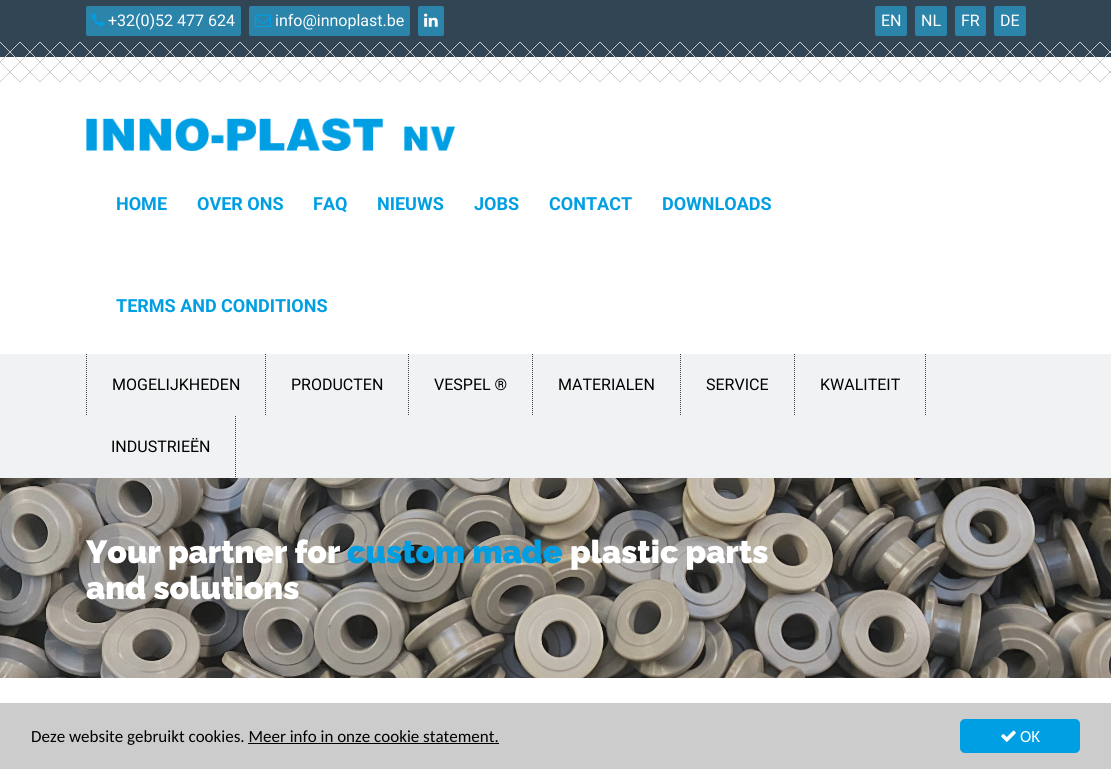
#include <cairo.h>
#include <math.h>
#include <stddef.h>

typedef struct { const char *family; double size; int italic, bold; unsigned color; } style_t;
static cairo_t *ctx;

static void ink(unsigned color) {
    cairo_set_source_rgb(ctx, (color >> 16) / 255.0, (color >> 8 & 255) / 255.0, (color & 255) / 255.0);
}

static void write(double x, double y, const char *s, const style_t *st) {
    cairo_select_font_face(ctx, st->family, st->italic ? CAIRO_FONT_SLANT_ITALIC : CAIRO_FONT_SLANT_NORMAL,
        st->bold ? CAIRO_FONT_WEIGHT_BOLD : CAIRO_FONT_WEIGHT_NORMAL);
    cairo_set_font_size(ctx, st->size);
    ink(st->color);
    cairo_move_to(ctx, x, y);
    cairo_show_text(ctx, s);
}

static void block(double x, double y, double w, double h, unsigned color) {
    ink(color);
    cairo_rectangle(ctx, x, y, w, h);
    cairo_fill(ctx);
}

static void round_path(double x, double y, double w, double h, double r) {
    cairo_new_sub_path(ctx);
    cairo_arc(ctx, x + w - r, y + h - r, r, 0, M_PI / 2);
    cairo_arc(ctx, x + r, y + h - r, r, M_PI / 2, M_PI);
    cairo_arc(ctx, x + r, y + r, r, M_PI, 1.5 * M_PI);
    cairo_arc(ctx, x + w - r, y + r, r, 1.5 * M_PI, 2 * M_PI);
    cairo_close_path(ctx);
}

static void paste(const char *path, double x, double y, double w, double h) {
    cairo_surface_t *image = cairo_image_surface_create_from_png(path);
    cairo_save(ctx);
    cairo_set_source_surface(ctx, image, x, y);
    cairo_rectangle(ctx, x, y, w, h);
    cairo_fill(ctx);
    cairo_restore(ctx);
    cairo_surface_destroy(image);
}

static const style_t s1 = {"Roboto", 16, 0, 0, 0xffffff};
static const style_t s2 = {"Roboto", 18, 0, 1, 0x009fe3};
static const style_t s3 = {"Roboto", 16, 0, 0, 0x000000};
static const style_t s4 = {"Raleway Black", 32, 0, 0, 0xffffff};
static const style_t s5 = {"Raleway Black", 32, 0, 0, 0x009fe3};
static const style_t s6 = {"Carlito", 17, 0, 0, 0x000000};
static const style_t s7 = {"Carlito", 17, 0, 0, 0xffffff};

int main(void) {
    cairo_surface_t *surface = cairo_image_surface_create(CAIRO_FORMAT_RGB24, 1111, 769);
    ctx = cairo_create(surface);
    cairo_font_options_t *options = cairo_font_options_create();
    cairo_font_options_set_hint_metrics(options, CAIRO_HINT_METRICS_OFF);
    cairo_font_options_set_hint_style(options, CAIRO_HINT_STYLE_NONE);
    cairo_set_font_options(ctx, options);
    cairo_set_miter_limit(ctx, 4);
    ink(0xffffff);
    cairo_paint(ctx);
    block(0, 0, 1111, 42, 0x324555);
    ink(0x2b84aa);
    round_path(86, 6, 155, 30, 2);
    cairo_fill(ctx);
    paste("pic1.png", 92, 13, 13, 13);
    write(108, 26, "+32(0)52 477 624", &s1);
    ink(0x2b84aa);
    round_path(249, 6, 161, 30, 2);
    cairo_fill(ctx);
    paste("pic2.png", 255, 14, 16, 14);
    write(275, 26, "info@innoplast.be", &s1);
    ink(0x2b84aa);
    round_path(418, 6, 26, 30, 2);
    cairo_fill(ctx);
    paste("pic3.png", 424, 13, 14, 14);
    round_path(875, 6, 32, 30, 2);
    cairo_fill(ctx);
    write(881, 26, "EN", &s1);
    ink(0x2b84aa);
    round_path(915, 6, 32, 30, 2);
    cairo_fill(ctx);
    write(921, 26, "NL", &s1);
    ink(0x2b84aa);
    round_path(955, 6, 31, 30, 2);
    cairo_fill(ctx);
    write(961, 26, "FR", &s1);
    ink(0x2b84aa);
    round_path(994, 6, 32, 30, 2);
    cairo_fill(ctx);
    write(1000, 26, "DE", &s1);
    paste("pic4.png", 0, 42, 1111, 40);
    paste("pic5.png", 86, 117, 369, 34);
    write(116, 210, "HOME", &s2);
    write(197, 210, "OVER ONS", &s2);
    write(313, 210, "FAQ", &s2);
    write(377, 210, "NIEUWS", &s2);
    write(474, 210, "JOBS", &s2);
    write(549, 210, "CONTACT", &s2);
    write(662, 210, "DOWNLOADS", &s2);
    write(116, 312, "TERMS AND CONDITIONS", &s2);
    block(0, 354, 1111, 124, 0xf1f2f3);
    cairo_new_path(ctx);
    cairo_move_to(ctx, 265.5, 354);
    cairo_line_to(ctx, 265.5, 416);
    ink(0x444444);
    cairo_set_line_width(ctx, 1);
    cairo_set_dash(ctx, (double[]){1, 1}, 2, 0);
    cairo_stroke(ctx);
    cairo_new_path(ctx);
    cairo_move_to(ctx, 86.5, 354);
    cairo_line_to(ctx, 86.5, 416);
    cairo_stroke(ctx);
    write(112, 390, "MOGELIJKHEDEN", &s3);
    cairo_new_path(ctx);
    cairo_move_to(ctx, 408.5, 354);
    cairo_line_to(ctx, 408.5, 416);
    ink(0x444444);
    cairo_stroke(ctx);
    write(291, 390, "PRODUCTEN", &s3);
    cairo_new_path(ctx);
    cairo_move_to(ctx, 532.5, 354);
    cairo_line_to(ctx, 532.5, 416);
    ink(0x444444);
    cairo_stroke(ctx);
    write(434, 390, "VESPEL ®", &s3);
    cairo_new_path(ctx);
    cairo_move_to(ctx, 680.5, 354);
    cairo_line_to(ctx, 680.5, 416);
    ink(0x444444);
    cairo_stroke(ctx);
    write(558, 390, "MATERIALEN", &s3);
    cairo_new_path(ctx);
    cairo_move_to(ctx, 794.5, 354);
    cairo_line_to(ctx, 794.5, 416);
    ink(0x444444);
    cairo_stroke(ctx);
    write(706, 390, "SERVICE", &s3);
    cairo_new_path(ctx);
    cairo_move_to(ctx, 925.5, 354);
    cairo_line_to(ctx, 925.5, 416);
    ink(0x444444);
    cairo_stroke(ctx);
    write(820, 390, "KWALITEIT", &s3);
    cairo_new_path(ctx);
    cairo_move_to(ctx, 235.5, 416);
    cairo_line_to(ctx, 235.5, 478);
    ink(0x444444);
    cairo_stroke(ctx);
    write(111, 452, "INDUSTRIEËN", &s3);
    paste("pic6.png", 0, 478, 1111, 200);
    write(86, 563, "Your partner for", &s4);
    write(347, 563, "custom made", &s5);
    write(570, 563, "plastic parts", &s4);
    write(86, 599, "and solutions", &s4);
    block(0, 703, 1111, 66, 0xcccccc);
    write(31, 742, "Deze website gebruikt cookies. Meer info in onze cookie statement.", &s6);
    block(248, 743, 251, 1, 0x000000);
    ink(0x009fe3);
    round_path(960, 719, 120, 34, 5);
    cairo_fill(ctx);
    paste("pic7.png", 1001, 730, 15, 12);
    write(1020, 742, "OK", &s7);
    cairo_surface_write_to_png(surface, "screenshot.png");
    cairo_font_options_destroy(options);
    cairo_destroy(ctx);
    cairo_surface_destroy(surface);
    return 0;
}
